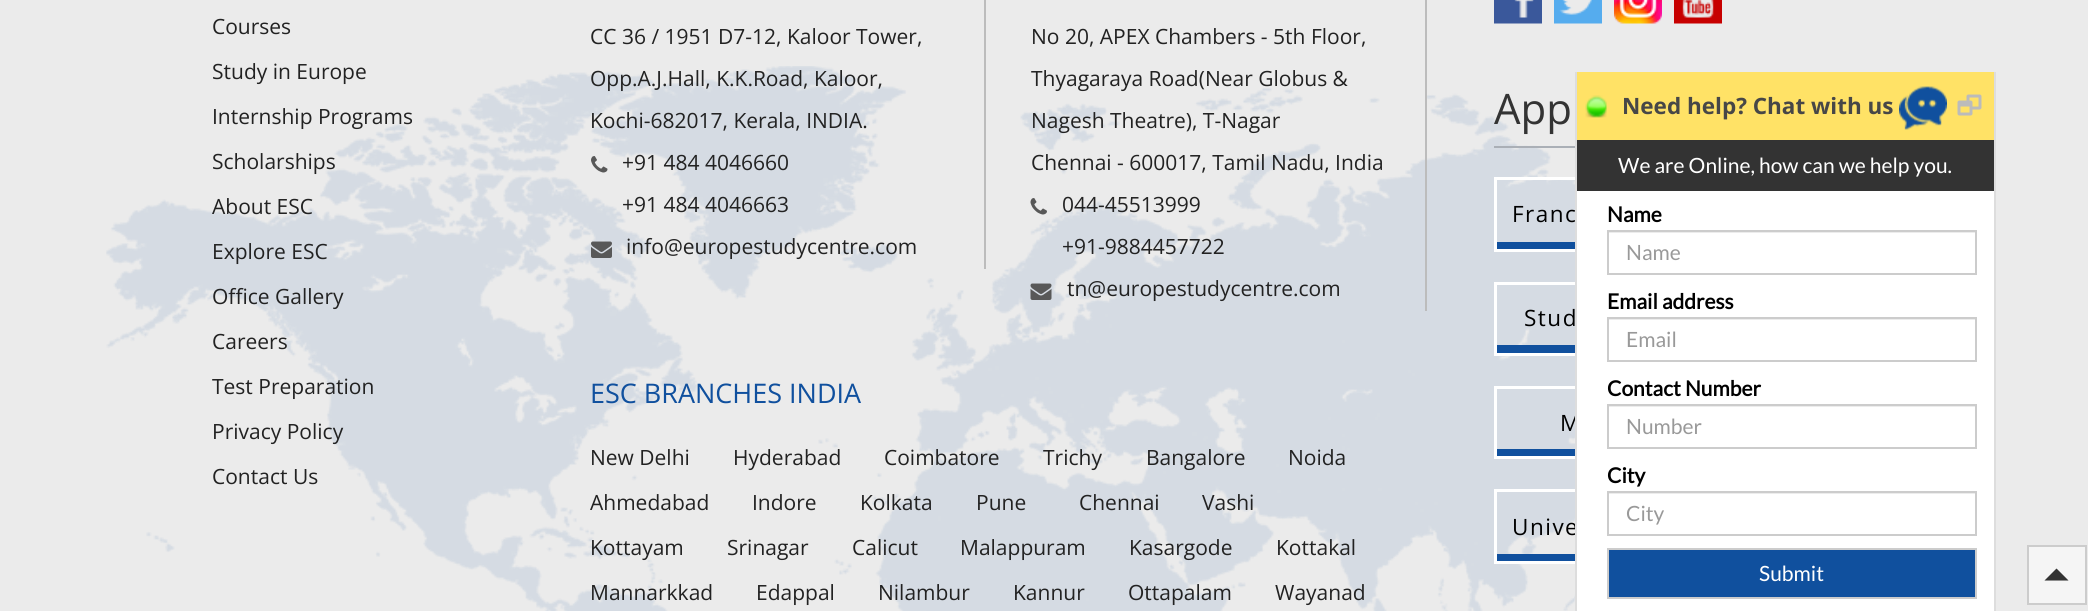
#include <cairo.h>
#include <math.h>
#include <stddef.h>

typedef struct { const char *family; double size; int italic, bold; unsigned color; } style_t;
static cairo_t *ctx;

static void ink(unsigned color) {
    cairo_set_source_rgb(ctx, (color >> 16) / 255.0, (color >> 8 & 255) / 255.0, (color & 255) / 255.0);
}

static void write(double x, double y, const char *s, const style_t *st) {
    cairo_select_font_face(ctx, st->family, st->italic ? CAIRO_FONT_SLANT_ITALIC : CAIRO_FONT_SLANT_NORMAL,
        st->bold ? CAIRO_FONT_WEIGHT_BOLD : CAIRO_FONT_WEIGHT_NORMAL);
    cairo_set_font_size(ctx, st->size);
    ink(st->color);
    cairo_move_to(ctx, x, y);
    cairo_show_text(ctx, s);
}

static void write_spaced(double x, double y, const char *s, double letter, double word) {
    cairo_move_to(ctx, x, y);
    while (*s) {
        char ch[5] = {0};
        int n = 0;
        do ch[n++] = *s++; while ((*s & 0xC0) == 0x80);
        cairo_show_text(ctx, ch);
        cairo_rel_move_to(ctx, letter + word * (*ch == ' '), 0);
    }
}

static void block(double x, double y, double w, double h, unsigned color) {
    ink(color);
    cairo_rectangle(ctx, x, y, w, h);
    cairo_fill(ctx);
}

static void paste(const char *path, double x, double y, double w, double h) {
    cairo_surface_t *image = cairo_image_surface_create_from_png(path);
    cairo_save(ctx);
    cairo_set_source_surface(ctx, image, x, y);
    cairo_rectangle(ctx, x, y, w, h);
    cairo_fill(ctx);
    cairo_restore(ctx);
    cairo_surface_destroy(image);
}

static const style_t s1 = {"Open Sans", 21, 0, 0, 0x222222};
static const style_t s2 = {"Open Sans", 27, 0, 0, 0x10509e};
static const style_t s3 = {"Open Sans", 42, 0, 0, 0x333333};
static const style_t s4 = {"Open Sans", 22.5, 0, 1, 0x474747};
static const style_t s5 = {"Lato", 21, 0, 0, 0xffffff};
static const style_t s6 = {"Lato", 21, 0, 1, 0x000000};
static const style_t s7 = {"Lato", 21, 0, 0, 0x999999};

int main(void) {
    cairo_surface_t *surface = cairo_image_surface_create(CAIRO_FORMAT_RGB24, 2088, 611);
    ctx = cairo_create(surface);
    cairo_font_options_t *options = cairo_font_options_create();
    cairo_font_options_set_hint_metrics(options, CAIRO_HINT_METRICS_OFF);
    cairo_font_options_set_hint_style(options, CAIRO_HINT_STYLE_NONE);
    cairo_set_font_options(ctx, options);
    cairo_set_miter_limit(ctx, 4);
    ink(0xebebeb);
    cairo_paint(ctx);
    paste("pic1.png", 106, 66, 1469, 545);
    write(212, 34, "Courses", &s1);
    write(212, 79, "Study in Europe", &s1);
    write(212, 124, "Internship Programs", &s1);
    write(212, 169, "Scholarships", &s1);
    write(212, 214, "About ESC", &s1);
    write(212, 259, "Explore ESC", &s1);
    write(212, 304, "Office Gallery", &s1);
    write(212, 349, "Careers", &s1);
    write(212, 394, "Test Preparation", &s1);
    write(212, 439, "Privacy Policy", &s1);
    write(212, 484, "Contact Us", &s1);
    block(984, 0, 2, 269, 0xbcbcbc);
    write(590, 44, "CC 36 / 1951 D7-12, Kaloor Tower,", &s1);
    write(590, 86, "Opp.A.J.Hall, K.K.Road, Kaloor,", &s1);
    write(590, 128, "Kochi-682017, Kerala, INDIA.", &s1);
    paste("pic2.png", 591, 156, 17, 17);
    write(622, 170, "+91 484 4046660", &s1);
    write(622, 212, "+91 484 4046663", &s1);
    paste("pic3.png", 591, 241, 21, 17);
    write(626, 254, "info@europestudycentre.com", &s1);
    block(1425, 0, 2, 311, 0xbcbcbc);
    write(1031, 44, "No 20, APEX Chambers - 5th Floor,", &s1);
    write(1031, 86, "Thyagaraya Road(Near Globus &", &s1);
    write(1031, 128, "Nagesh Theatre), T-Nagar", &s1);
    write(1031, 170, "Chennai - 600017, Tamil Nadu, India", &s1);
    paste("pic4.png", 1030, 198, 17, 17);
    write(1062, 212, "044-45513999", &s1);
    write(1062, 254, "+91-9884457722", &s1);
    paste("pic5.png", 1030, 283, 22, 17);
    write(1067, 296, "tn@europestudycentre.com", &s1);
    write(590, 403, "ESC BRANCHES INDIA", &s2);
    write(590, 465, "New Delhi", &s1);
    write(733, 465, "Hyderabad", &s1);
    write(884, 465, "Coimbatore", &s1);
    write(1043, 465, "Trichy", &s1);
    write(1146, 465, "Bangalore", &s1);
    write(1288, 465, "Noida", &s1);
    write(590, 510, "Ahmedabad", &s1);
    write(752, 510, "Indore", &s1);
    write(860, 510, "Kolkata", &s1);
    write(976, 510, "Pune", &s1);
    write(1079, 510, "Chennai", &s1);
    write(1202, 510, "Vashi", &s1);
    write(590, 555, "Kottayam", &s1);
    write(727, 555, "Srinagar", &s1);
    write(852, 555, "Calicut", &s1);
    write(960, 555, "Malappuram", &s1);
    write(1129, 555, "Kasargode", &s1);
    write(1276, 555, "Kottakal", &s1);
    write(590, 600, "Mannarkkad", &s1);
    write(756, 600, "Edappal", &s1);
    write(878, 600, "Nilambur", &s1);
    write(1013, 600, "Kannur", &s1);
    write(1128, 600, "Ottapalam", &s1);
    write(1275, 600, "Wayanad", &s1);
    paste("pic6.png", 1494, 0, 48, 24);
    paste("pic7.png", 1554, 0, 48, 24);
    paste("pic8.png", 1614, 0, 48, 24);
    paste("pic9.png", 1674, 0, 48, 24);
    write(1494, 124, "App", &s3);
    block(1494, 146, 81, 2, 0xaaafb6);
    block(1497, 242, 78, 7, 0x10509e);
    cairo_rectangle(ctx, 1495.5, 178.5, 303, 72);
    ink(0xffffff);
    cairo_set_line_width(ctx, 3);
    cairo_stroke(ctx);
    cairo_set_font_size(ctx, 22.5);
    ink(0x000000);
    write_spaced(1512, 222, "Franc", 1.5, 0);
    block(1497, 345, 78, 8, 0x10509e);
    cairo_rectangle(ctx, 1495.5, 283.5, 303, 71);
    ink(0xffffff);
    cairo_stroke(ctx);
    ink(0x000000);
    write_spaced(1524, 326, "Stud", 1.5, 0);
    block(1497, 449, 78, 7, 0x10509e);
    cairo_rectangle(ctx, 1495.5, 387.5, 303, 70);
    ink(0xffffff);
    cairo_stroke(ctx);
    ink(0x000000);
    write_spaced(1560, 431, "M", 1.5, 0);
    block(1497, 554, 78, 7, 0x10509e);
    cairo_rectangle(ctx, 1495.5, 490.5, 303, 72);
    ink(0xffffff);
    cairo_stroke(ctx);
    ink(0x000000);
    write_spaced(1512, 535, "Unive", 1.5, 0);
    block(1577, 191, 417, 420, 0xffffff);
    block(1994, 72, 2, 539, 0xdddddd);
    block(1575, 72, 2, 539, 0xdddddd);
    block(1577, 72, 417, 68, 0xffe266);
    write(1622, 114, "Need help? Chat with us", &s4);
    paste("pic10.png", 1899, 86, 48, 44);
    paste("pic11.png", 1957, 94, 25, 22);
    paste("pic12.png", 1585, 95, 22, 23);
    block(1577, 140, 417, 51, 0x333333);
    write(1618, 173, "We are Online, how can we help you.", &s5);
    write(1607, 222, "Name", &s6);
    block(1608, 232, 368, 1, 0xececec);
    cairo_rectangle(ctx, 1608, 231, 368, 43);
    ink(0xcccccc);
    cairo_set_line_width(ctx, 2);
    cairo_stroke(ctx);
    write(1626, 260, "Name", &s7);
    write(1607, 309, "Email address", &s6);
    block(1608, 319, 368, 1, 0xececec);
    cairo_rectangle(ctx, 1608, 318, 368, 43);
    ink(0xcccccc);
    cairo_stroke(ctx);
    write(1626, 347, "Email", &s7);
    write(1607, 396, "Contact Number", &s6);
    block(1608, 406, 368, 1, 0xececec);
    cairo_rectangle(ctx, 1608, 405, 368, 43);
    ink(0xcccccc);
    cairo_stroke(ctx);
    write(1626, 434, "Number", &s7);
    write(1607, 483, "City", &s6);
    block(1608, 493, 368, 1, 0xececec);
    cairo_rectangle(ctx, 1608, 492, 368, 43);
    ink(0xcccccc);
    cairo_stroke(ctx);
    write(1626, 521, "City", &s7);
    ink(0x10509e);
    cairo_rectangle(ctx, 1608, 549, 368, 49);
    cairo_fill_preserve(ctx);
    ink(0xcccccc);
    cairo_stroke(ctx);
    write(1759, 581, "Submit", &s5);
    ink(0xf5f5f5);
    cairo_rectangle(ctx, 2028, 546, 58, 58);
    cairo_fill_preserve(ctx);
    ink(0xcccccc);
    cairo_stroke(ctx);
    ink(0x333333);
    cairo_new_path(ctx);
    cairo_move_to(ctx, 2068.5, 580.5);
    cairo_line_to(ctx, 2044.5, 580.5);
    cairo_line_to(ctx, 2056.5, 568.5);
    cairo_close_path(ctx);
    cairo_fill(ctx);
    cairo_surface_write_to_png(surface, "screenshot.png");
    cairo_font_options_destroy(options);
    cairo_destroy(ctx);
    cairo_surface_destroy(surface);
    return 0;
}
